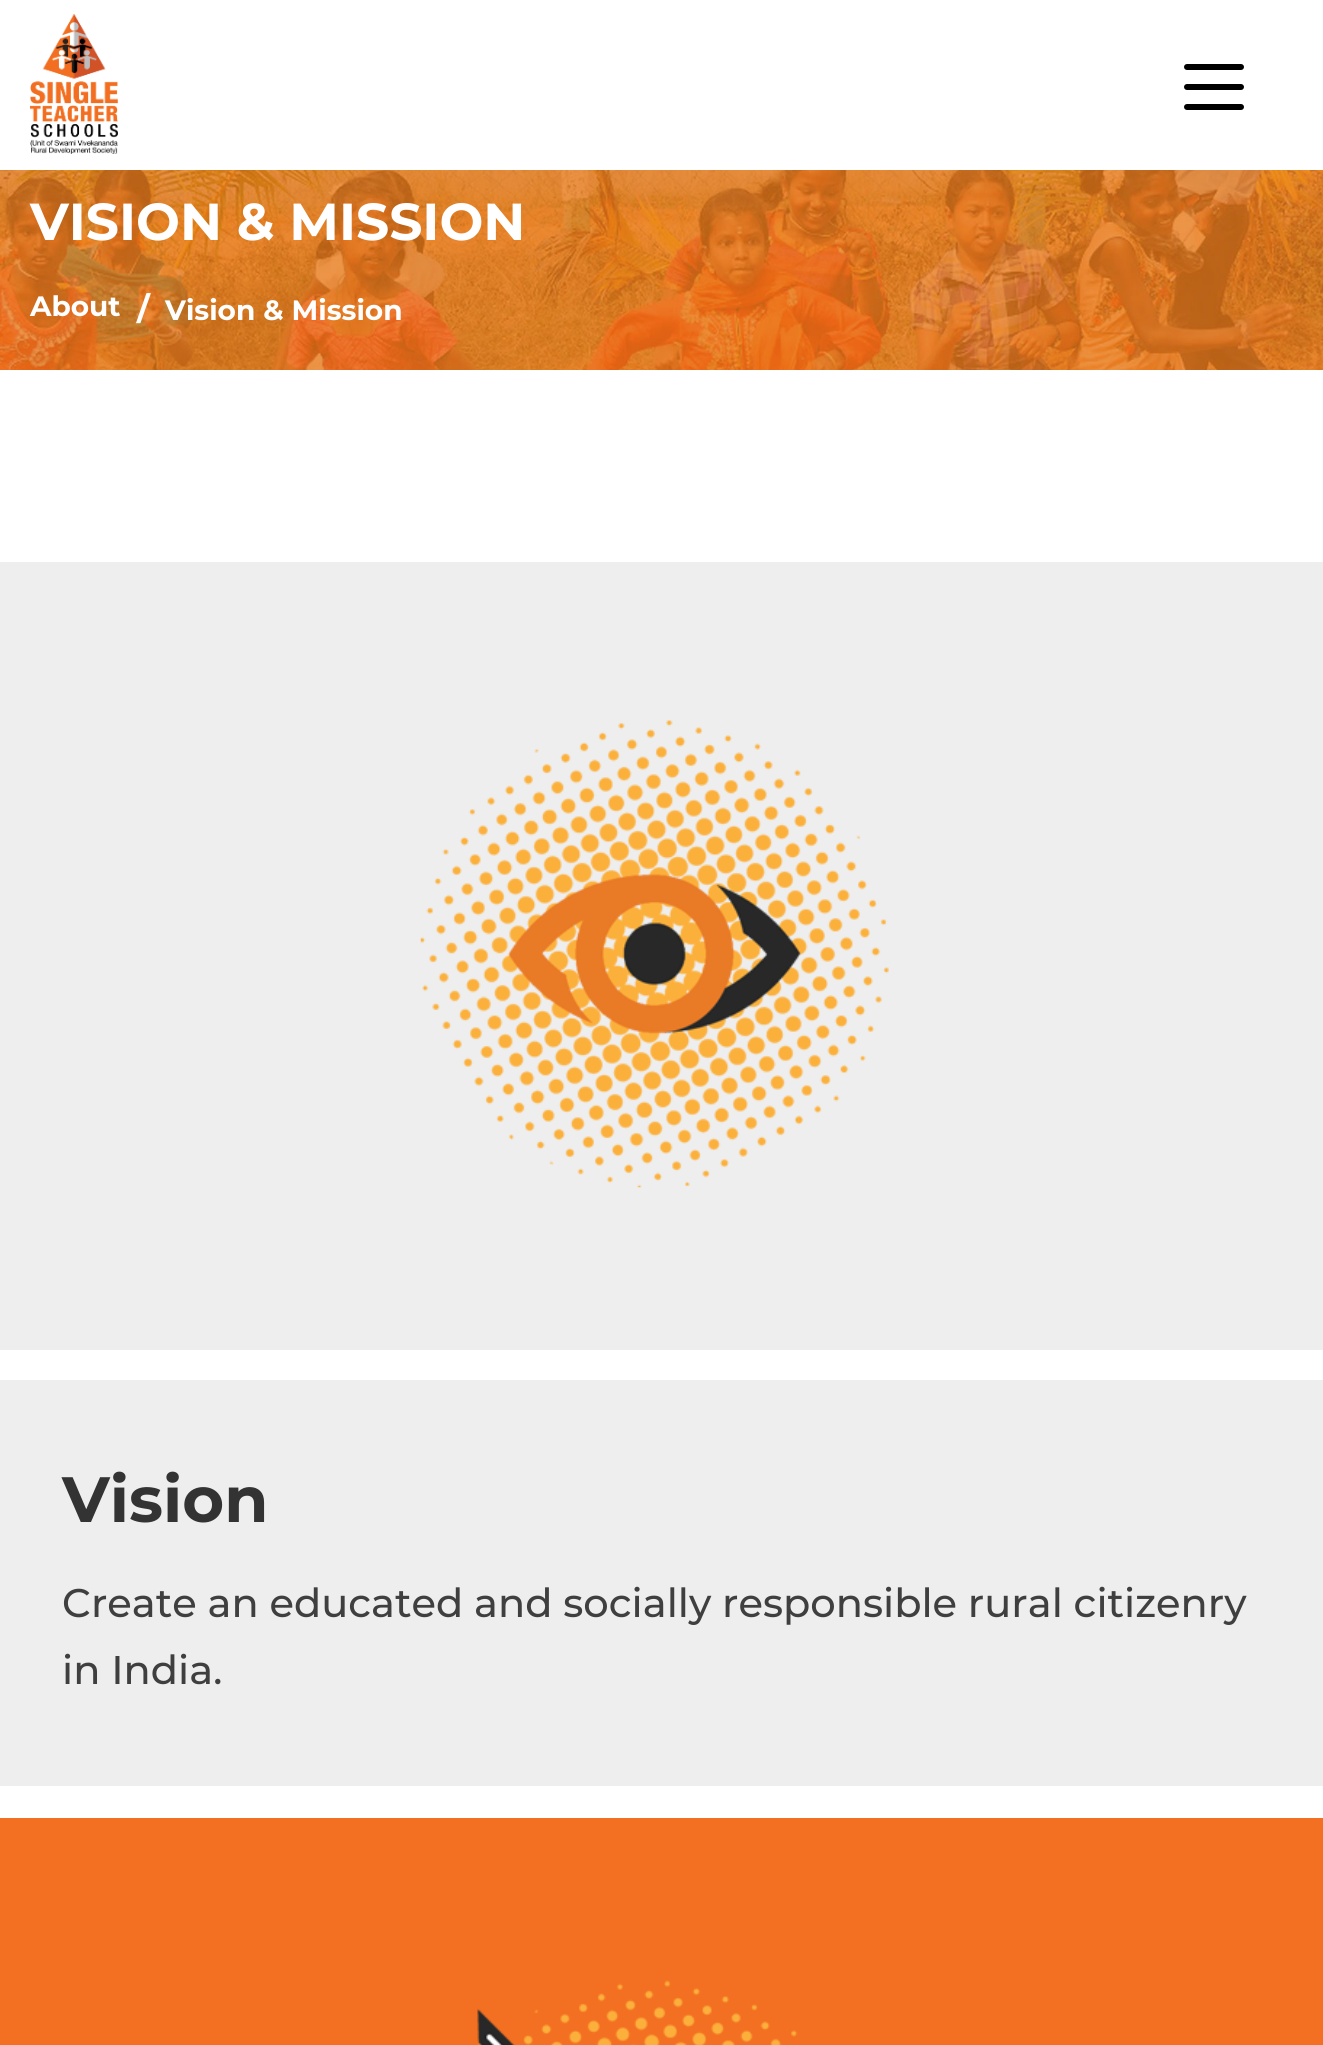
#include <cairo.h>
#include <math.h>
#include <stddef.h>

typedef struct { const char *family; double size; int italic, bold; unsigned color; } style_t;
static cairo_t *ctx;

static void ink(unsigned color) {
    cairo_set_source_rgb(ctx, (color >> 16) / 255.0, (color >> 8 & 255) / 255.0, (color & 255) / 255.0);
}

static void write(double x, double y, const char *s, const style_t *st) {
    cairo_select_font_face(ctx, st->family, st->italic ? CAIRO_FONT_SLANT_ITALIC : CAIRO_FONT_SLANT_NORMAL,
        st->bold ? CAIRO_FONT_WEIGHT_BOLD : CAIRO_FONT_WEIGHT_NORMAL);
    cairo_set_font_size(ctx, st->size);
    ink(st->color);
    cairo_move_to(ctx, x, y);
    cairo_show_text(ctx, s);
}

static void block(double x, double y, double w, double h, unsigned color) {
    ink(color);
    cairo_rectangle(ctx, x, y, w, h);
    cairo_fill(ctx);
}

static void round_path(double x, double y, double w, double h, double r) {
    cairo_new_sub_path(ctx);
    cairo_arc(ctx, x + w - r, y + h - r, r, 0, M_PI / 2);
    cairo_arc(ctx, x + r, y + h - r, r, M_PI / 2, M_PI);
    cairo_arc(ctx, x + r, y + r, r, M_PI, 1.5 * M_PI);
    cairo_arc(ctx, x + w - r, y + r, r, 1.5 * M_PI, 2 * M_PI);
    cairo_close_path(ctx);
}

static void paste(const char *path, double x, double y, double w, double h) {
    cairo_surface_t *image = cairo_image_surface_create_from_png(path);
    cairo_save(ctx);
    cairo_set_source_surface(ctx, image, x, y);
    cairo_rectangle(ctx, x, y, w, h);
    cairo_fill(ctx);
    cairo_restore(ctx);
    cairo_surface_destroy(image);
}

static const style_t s1 = {"Montserrat", 52, 0, 1, 0xffffff};
static const style_t s2 = {"Montserrat", 28, 0, 1, 0xffffff};
static const style_t s3 = {"Montserrat", 32, 0, 1, 0xffffff};
static const style_t s4 = {"Montserrat", 64, 0, 1, 0x333333};
static const style_t s5 = {"Montserrat Medium", 40, 0, 0, 0x3f3f3f};

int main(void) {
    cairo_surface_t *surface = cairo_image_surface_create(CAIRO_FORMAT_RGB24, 1323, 2045);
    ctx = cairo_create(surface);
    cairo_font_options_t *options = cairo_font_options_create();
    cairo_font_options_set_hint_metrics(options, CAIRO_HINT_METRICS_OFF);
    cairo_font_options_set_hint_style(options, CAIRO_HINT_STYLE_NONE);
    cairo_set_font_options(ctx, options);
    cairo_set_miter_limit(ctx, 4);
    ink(0xffffff);
    cairo_paint(ctx);
    paste("pic1.png", 30, 14, 88, 140);
    ink(0x000000);
    round_path(1184, 84, 60, 6, 3);
    cairo_fill(ctx);
    round_path(1184, 64, 60, 6, 3);
    cairo_fill(ctx);
    round_path(1184, 104, 60, 6, 3);
    cairo_fill(ctx);
    paste("pic2.png", 0, 170, 1323, 200);
    write(30, 240, "VISION & MISSION", &s1);
    write(30, 316, "About", &s2);
    write(137, 320, "/", &s3);
    write(165, 320, "Vision & Mission", &s2);
    block(0, 562, 1323, 788, 0xeeeeee);
    paste("pic3.png", 420, 720, 469, 468);
    block(0, 1380, 1323, 406, 0xeeeeee);
    write(62, 1522, "Vision", &s4);
    write(62, 1617, "Create an educated and socially responsible rural citizenry", &s5);
    write(62, 1684, "in India.", &s5);
    block(0, 1818, 1323, 227, 0xf37022);
    paste("pic4.png", 477, 1980, 321, 65);
    cairo_surface_write_to_png(surface, "screenshot.png");
    cairo_font_options_destroy(options);
    cairo_destroy(ctx);
    cairo_surface_destroy(surface);
    return 0;
}
